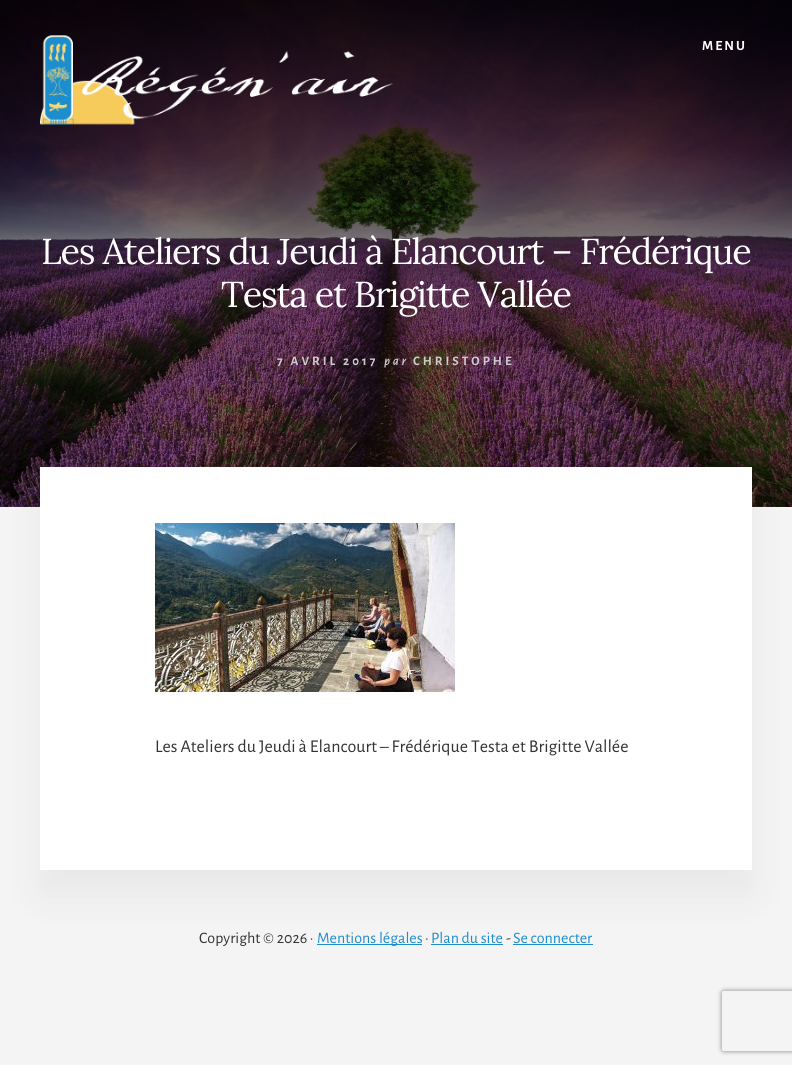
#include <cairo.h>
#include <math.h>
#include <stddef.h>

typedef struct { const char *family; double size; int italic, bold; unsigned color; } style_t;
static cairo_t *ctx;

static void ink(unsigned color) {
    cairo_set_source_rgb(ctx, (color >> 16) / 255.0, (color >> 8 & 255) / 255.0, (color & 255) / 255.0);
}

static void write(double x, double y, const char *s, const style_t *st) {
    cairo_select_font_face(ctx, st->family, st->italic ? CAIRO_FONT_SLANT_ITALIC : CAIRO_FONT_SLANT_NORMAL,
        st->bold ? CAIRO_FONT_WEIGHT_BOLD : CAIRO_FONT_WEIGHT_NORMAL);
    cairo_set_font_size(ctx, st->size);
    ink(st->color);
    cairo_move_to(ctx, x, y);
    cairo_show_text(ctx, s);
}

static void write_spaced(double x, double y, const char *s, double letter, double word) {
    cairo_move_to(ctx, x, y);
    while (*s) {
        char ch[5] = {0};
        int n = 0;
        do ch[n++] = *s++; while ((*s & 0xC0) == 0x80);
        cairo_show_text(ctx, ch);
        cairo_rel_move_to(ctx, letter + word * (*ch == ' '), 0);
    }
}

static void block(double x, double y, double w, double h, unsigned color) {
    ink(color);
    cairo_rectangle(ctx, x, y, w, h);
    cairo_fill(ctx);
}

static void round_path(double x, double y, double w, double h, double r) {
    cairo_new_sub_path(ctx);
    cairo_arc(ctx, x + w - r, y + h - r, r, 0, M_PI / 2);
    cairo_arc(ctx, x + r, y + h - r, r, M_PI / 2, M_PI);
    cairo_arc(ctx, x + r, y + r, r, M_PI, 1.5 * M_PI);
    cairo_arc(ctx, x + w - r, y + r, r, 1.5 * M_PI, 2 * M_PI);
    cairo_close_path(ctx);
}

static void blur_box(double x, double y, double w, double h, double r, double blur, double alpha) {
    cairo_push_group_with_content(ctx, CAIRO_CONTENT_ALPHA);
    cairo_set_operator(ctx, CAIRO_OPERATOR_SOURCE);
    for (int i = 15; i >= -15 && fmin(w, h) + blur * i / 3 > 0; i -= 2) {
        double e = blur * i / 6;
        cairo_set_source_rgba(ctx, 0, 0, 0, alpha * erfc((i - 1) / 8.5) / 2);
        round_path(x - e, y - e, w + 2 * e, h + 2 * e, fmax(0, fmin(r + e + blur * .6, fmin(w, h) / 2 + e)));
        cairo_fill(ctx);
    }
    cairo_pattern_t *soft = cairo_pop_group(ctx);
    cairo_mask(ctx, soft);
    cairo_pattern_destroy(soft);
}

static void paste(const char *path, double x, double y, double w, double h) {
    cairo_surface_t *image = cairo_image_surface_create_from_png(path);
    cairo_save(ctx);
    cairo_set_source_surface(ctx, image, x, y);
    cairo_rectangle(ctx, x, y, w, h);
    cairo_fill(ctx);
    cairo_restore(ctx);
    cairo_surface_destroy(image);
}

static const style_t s1 = {"Alegreya Sans", 18, 0, 0, 0x333333};
static const style_t s2 = {"Alegreya Sans", 16, 0, 0, 0x333333};
static const style_t s3 = {"Alegreya Sans", 16, 0, 0, 0x1e8dcd};

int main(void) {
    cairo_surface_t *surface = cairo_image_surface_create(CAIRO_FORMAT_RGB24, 792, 1065);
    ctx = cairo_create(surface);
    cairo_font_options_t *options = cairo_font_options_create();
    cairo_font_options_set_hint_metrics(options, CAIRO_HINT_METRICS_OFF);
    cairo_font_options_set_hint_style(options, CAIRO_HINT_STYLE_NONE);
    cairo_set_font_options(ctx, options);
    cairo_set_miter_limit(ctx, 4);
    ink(0xf4f4f4);
    cairo_paint(ctx);
    paste("pic1.png", 0, 0, 792, 507);
    paste("pic2.png", 40, 35, 353, 90);
    cairo_select_font_face(ctx, "Alegreya Sans", CAIRO_FONT_SLANT_NORMAL, CAIRO_FONT_WEIGHT_BOLD);
    cairo_set_font_size(ctx, 14);
    ink(0xffffff);
    write_spaced(702, 50, "MENU", 2, 0);
    cairo_select_font_face(ctx, "Lora", CAIRO_FONT_SLANT_NORMAL, CAIRO_FONT_WEIGHT_NORMAL);
    cairo_set_font_size(ctx, 36);
    write_spaced(41, 264, "Les Ateliers du Jeudi à Elancourt – Frédérique", -1.25, 0);
    write_spaced(221, 307, "Testa et Brigitte Vallée", -1.25, 0);
    cairo_select_font_face(ctx, "Alegreya Sans", CAIRO_FONT_SLANT_NORMAL, CAIRO_FONT_WEIGHT_BOLD);
    cairo_set_font_size(ctx, 13);
    ink(0xcccccc);
    write_spaced(277, 365, "7 AVRIL 2017", 3, 0);
    cairo_select_font_face(ctx, "Alegreya Sans", CAIRO_FONT_SLANT_ITALIC, CAIRO_FONT_WEIGHT_BOLD);
    write_spaced(384, 365, "par", 3, 0);
    cairo_select_font_face(ctx, "Alegreya Sans", CAIRO_FONT_SLANT_NORMAL, CAIRO_FONT_WEIGHT_BOLD);
    write_spaced(413, 365, "CHRISTOPHE", 3, 0);
    block(317, 944, 105, 1, 0x1e8dcd);
    block(431, 944, 72, 1, 0x1e8dcd);
    block(513, 944, 80, 1, 0x1e8dcd);
    ink(0x000000);
    blur_box(40, 492, 712, 403, 0, 20, 0.05);
    block(40, 467, 712, 403, 0xffffff);
    paste("pic3.png", 155, 523, 300, 169);
    write(155, 752, "Les Ateliers du Jeudi à Elancourt – Frédérique Testa et Brigitte Vallée", &s1);
    write(199, 943, "Copyright © 2026 ·", &s2);
    write(317, 943, "Mentions légales", &s3);
    write(425, 943, "·", &s2);
    write(431, 943, "Plan du site", &s3);
    write(506, 943, "-", &s2);
    write(513, 943, "Se connecter", &s3);
    cairo_save(ctx);
    cairo_set_fill_rule(ctx, CAIRO_FILL_RULE_EVEN_ODD);
    cairo_new_path(ctx);
    cairo_move_to(ctx, 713, 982);
    cairo_line_to(ctx, 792, 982);
    cairo_line_to(ctx, 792, 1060);
    cairo_line_to(ctx, 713, 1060);
    cairo_close_path(ctx);
    cairo_move_to(ctx, 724, 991);
    cairo_line_to(ctx, 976, 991);
    cairo_curve_to(ctx, 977, 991, 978, 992, 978, 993);
    cairo_line_to(ctx, 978, 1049);
    cairo_curve_to(ctx, 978, 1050, 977, 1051, 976, 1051);
    cairo_line_to(ctx, 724, 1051);
    cairo_curve_to(ctx, 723, 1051, 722, 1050, 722, 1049);
    cairo_line_to(ctx, 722, 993);
    cairo_curve_to(ctx, 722, 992, 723, 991, 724, 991);
    cairo_close_path(ctx);
    cairo_clip(ctx);
    ink(0x808080);
    blur_box(722, 991, 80, 60, 2, 2.5, 1);
    cairo_restore(ctx);
    cairo_surface_write_to_png(surface, "screenshot.png");
    cairo_font_options_destroy(options);
    cairo_destroy(ctx);
    cairo_surface_destroy(surface);
    return 0;
}
